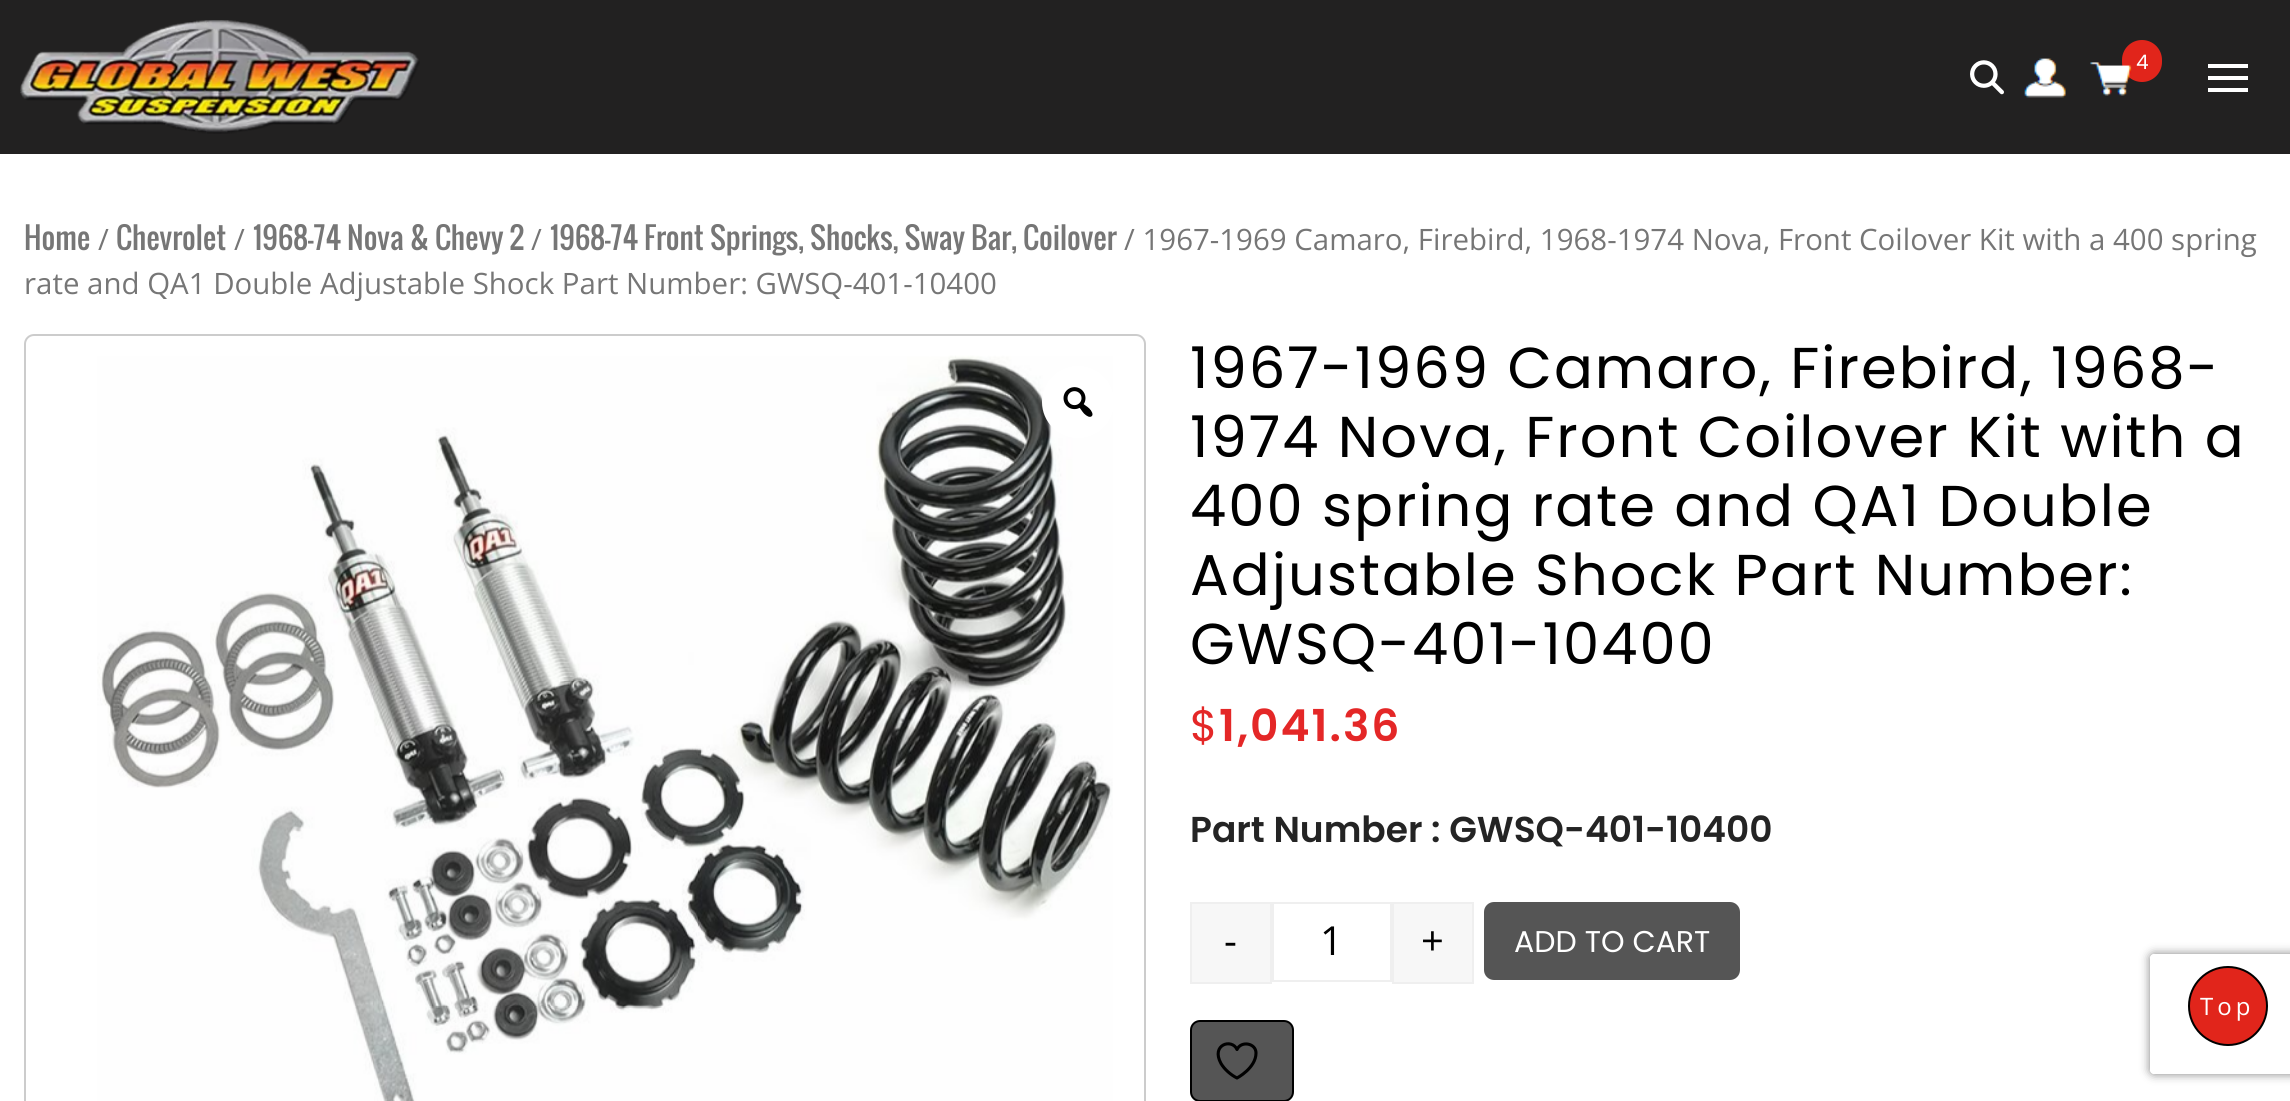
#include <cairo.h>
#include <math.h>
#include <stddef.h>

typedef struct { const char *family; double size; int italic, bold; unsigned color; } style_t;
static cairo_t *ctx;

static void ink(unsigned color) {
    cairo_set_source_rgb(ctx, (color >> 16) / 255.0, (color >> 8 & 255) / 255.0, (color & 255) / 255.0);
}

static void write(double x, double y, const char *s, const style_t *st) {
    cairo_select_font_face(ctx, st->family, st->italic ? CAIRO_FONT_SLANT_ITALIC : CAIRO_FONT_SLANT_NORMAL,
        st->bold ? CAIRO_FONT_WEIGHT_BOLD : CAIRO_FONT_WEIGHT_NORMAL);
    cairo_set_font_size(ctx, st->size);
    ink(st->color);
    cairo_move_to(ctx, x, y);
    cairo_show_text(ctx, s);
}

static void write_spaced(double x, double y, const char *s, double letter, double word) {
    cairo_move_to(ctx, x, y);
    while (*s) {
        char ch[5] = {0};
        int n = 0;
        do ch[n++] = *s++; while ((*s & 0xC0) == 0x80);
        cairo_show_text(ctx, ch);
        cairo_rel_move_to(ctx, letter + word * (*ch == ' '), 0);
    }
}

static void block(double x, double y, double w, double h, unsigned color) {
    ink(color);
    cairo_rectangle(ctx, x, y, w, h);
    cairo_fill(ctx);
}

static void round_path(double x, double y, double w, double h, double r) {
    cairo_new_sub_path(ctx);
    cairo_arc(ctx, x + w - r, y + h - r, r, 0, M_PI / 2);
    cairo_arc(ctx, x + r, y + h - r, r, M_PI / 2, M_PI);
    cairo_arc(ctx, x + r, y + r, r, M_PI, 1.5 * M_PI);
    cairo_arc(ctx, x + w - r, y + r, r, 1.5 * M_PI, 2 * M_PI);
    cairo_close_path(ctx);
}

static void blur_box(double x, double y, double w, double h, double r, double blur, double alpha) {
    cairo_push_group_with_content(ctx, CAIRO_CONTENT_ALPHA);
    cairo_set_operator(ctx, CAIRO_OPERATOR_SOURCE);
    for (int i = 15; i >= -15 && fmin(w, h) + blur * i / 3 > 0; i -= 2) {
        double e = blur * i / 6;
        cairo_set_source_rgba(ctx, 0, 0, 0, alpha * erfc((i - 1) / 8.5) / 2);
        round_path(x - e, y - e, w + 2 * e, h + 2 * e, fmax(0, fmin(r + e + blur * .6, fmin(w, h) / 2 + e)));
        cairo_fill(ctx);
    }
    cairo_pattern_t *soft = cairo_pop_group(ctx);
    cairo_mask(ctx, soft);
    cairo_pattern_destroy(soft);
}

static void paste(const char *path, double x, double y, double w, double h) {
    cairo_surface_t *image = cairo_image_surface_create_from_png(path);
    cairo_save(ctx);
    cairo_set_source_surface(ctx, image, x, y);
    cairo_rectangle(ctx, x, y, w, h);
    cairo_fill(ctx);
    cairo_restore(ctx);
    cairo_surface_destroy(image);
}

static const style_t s1 = {"Poppins", 20, 0, 0, 0xffffff};
static const style_t s2 = {"Oswald", 29.45, 0, 0, 0x767676};
static const style_t s3 = {"Open Sans", 29.45, 0, 0, 0x767676};
static const style_t s4 = {"Poppins SemiBold", 36, 0, 0, 0x242424};
static const style_t s5 = {"Open Sans", 40, 0, 0, 0x000000};
static const style_t s6 = {"Poppins", 30, 0, 0, 0xffffff};

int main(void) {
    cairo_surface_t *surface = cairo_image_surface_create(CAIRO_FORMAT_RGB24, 2290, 1101);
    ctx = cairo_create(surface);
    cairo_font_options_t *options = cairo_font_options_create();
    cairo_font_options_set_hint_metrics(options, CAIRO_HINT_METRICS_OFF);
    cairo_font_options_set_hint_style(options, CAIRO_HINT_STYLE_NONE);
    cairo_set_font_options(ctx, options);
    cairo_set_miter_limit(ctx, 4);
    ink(0xffffff);
    cairo_paint(ctx);
    block(0, 0, 2290, 154, 0x222121);
    paste("pic1.png", 20, 20, 400, 114);
    block(2208, 64, 40, 4, 0xffffff);
    block(2208, 76, 40, 4, 0xffffff);
    block(2208, 88, 40, 4, 0xffffff);
    paste("pic2.png", 1970, 60, 34, 35);
    paste("pic3.png", 2024, 58, 42, 40);
    ink(0xe1251b);
    round_path(2122, 40, 40, 42, 20);
    cairo_fill(ctx);
    paste("pic4.png", 2090, 62, 42, 34);
    write(2136, 69, "4", &s1);
    write(24, 250, "Home", &s2);
    write(98, 250, "/", &s3);
    write(116, 250, "Chevrolet", &s2);
    write(234, 250, "/", &s3);
    write(253, 250, "1968-74 Nova & Chevy 2", &s2);
    write(531, 250, "/", &s3);
    write(550, 250, "1968-74 Front Springs, Shocks, Sway Bar, Coilover", &s2);
    write(1124, 250, "/ 1967-1969 Camaro, Firebird, 1968-1974 Nova, Front Coilover Kit with a 400 spring", &s3);
    write(24, 294, "rate and QA1 Double Adjustable Shock Part Number: GWSQ-401-10400", &s3);
    round_path(25, 335, 1120, 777, 9);
    ink(0xcccccc);
    cairo_stroke(ctx);
    paste("pic5.png", 97, 355, 1016, 746);
    ink(0xffffff);
    cairo_arc(ctx, 1078, 402, 36, 0, 2 * M_PI);
    cairo_fill(ctx);
    paste("pic6.png", 1063, 387, 30, 30);
    cairo_select_font_face(ctx, "Poppins", CAIRO_FONT_SLANT_NORMAL, CAIRO_FONT_WEIGHT_NORMAL);
    cairo_set_font_size(ctx, 57.6);
    ink(0x000000);
    write_spaced(1190, 388, "1967-1969 Camaro, Firebird, 1968-", 2, 0);
    write_spaced(1190, 457, "1974 Nova, Front Coilover Kit with a", 2, 0);
    write_spaced(1190, 526, "400 spring rate and QA1 Double", 2, 0);
    write_spaced(1190, 595, "Adjustable Shock Part Number:", 2, 0);
    write_spaced(1190, 664, "GWSQ-401-10400", 2, 0);
    cairo_set_font_size(ctx, 44);
    ink(0xe42727);
    write_spaced(1190, 741, "$", 2, 0);
    cairo_select_font_face(ctx, "Poppins SemiBold", CAIRO_FONT_SLANT_NORMAL, CAIRO_FONT_WEIGHT_NORMAL);
    write_spaced(1219, 741, "1,041.36", 2, 0);
    write(1190, 842, "Part Number : GWSQ-401-10400", &s4);
    ink(0xf7f7f7);
    cairo_rectangle(ctx, 1191, 903, 80, 80);
    cairo_fill_preserve(ctx);
    ink(0xefefef);
    cairo_stroke(ctx);
    write(1224, 955, "-", &s5);
    cairo_rectangle(ctx, 1273, 903, 118, 78);
    ink(0xefefef);
    cairo_stroke(ctx);
    write(1320, 955, "1", &s5);
    ink(0xf7f7f7);
    cairo_rectangle(ctx, 1393, 903, 80, 80);
    cairo_fill_preserve(ctx);
    ink(0xefefef);
    cairo_stroke(ctx);
    write(1421, 955, "+", &s5);
    ink(0x555555);
    round_path(1484, 902, 256, 78, 10);
    cairo_fill(ctx);
    write(1514, 952, "ADD TO CART", &s6);
    ink(0x555555);
    round_path(1191, 1021, 102, 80, 9);
    cairo_fill_preserve(ctx);
    ink(0x000000);
    cairo_stroke(ctx);
    cairo_new_path(ctx);
    cairo_move_to(ctx, 1256, 1053);
    cairo_curve_to(ctx, 1256, 1043, 1241, 1040.5, 1237, 1049.5);
    cairo_curve_to(ctx, 1232, 1038, 1210.5, 1044.5, 1221, 1063.5);
    cairo_curve_to(ctx, 1224.5, 1069.5, 1231, 1075, 1237, 1078);
    cairo_curve_to(ctx, 1237, 1078, 1256, 1068, 1256, 1053);
    cairo_close_path(ctx);
    cairo_set_line_width(ctx, 3.1);
    cairo_set_line_cap(ctx, CAIRO_LINE_CAP_ROUND);
    cairo_set_line_join(ctx, CAIRO_LINE_JOIN_ROUND);
    cairo_stroke(ctx);
    cairo_save(ctx);
    cairo_set_fill_rule(ctx, CAIRO_FILL_RULE_EVEN_ODD);
    cairo_new_path(ctx);
    cairo_move_to(ctx, 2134, 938);
    cairo_line_to(ctx, 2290, 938);
    cairo_line_to(ctx, 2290, 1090);
    cairo_line_to(ctx, 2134, 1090);
    cairo_close_path(ctx);
    cairo_move_to(ctx, 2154, 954);
    cairo_line_to(ctx, 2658, 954);
    cairo_curve_to(ctx, 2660, 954, 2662, 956, 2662, 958);
    cairo_line_to(ctx, 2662, 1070);
    cairo_curve_to(ctx, 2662, 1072, 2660, 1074, 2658, 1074);
    cairo_line_to(ctx, 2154, 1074);
    cairo_curve_to(ctx, 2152, 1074, 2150, 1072, 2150, 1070);
    cairo_line_to(ctx, 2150, 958);
    cairo_curve_to(ctx, 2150, 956, 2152, 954, 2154, 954);
    cairo_close_path(ctx);
    cairo_clip(ctx);
    ink(0x808080);
    blur_box(2150, 954, 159, 120, 4, 5, 1);
    cairo_restore(ctx);
    ink(0xe1251b);
    cairo_arc(ctx, 2228, 1006, 39, 0, 2 * M_PI);
    cairo_fill_preserve(ctx);
    ink(0x000000);
    cairo_set_line_width(ctx, 2);
    cairo_set_line_cap(ctx, CAIRO_LINE_CAP_BUTT);
    cairo_set_line_join(ctx, CAIRO_LINE_JOIN_MITER);
    cairo_stroke(ctx);
    cairo_select_font_face(ctx, "Open Sans", CAIRO_FONT_SLANT_NORMAL, CAIRO_FONT_WEIGHT_NORMAL);
    cairo_set_font_size(ctx, 24);
    ink(0xffffff);
    write_spaced(2200, 1015, "Top", 4, 0);
    cairo_surface_write_to_png(surface, "screenshot.png");
    cairo_font_options_destroy(options);
    cairo_destroy(ctx);
    cairo_surface_destroy(surface);
    return 0;
}
